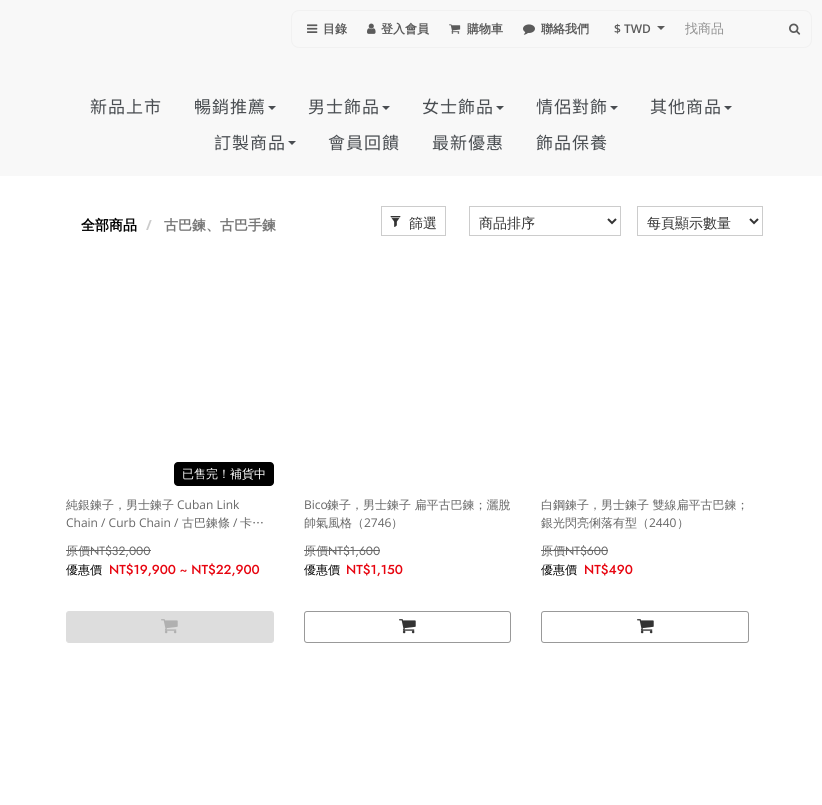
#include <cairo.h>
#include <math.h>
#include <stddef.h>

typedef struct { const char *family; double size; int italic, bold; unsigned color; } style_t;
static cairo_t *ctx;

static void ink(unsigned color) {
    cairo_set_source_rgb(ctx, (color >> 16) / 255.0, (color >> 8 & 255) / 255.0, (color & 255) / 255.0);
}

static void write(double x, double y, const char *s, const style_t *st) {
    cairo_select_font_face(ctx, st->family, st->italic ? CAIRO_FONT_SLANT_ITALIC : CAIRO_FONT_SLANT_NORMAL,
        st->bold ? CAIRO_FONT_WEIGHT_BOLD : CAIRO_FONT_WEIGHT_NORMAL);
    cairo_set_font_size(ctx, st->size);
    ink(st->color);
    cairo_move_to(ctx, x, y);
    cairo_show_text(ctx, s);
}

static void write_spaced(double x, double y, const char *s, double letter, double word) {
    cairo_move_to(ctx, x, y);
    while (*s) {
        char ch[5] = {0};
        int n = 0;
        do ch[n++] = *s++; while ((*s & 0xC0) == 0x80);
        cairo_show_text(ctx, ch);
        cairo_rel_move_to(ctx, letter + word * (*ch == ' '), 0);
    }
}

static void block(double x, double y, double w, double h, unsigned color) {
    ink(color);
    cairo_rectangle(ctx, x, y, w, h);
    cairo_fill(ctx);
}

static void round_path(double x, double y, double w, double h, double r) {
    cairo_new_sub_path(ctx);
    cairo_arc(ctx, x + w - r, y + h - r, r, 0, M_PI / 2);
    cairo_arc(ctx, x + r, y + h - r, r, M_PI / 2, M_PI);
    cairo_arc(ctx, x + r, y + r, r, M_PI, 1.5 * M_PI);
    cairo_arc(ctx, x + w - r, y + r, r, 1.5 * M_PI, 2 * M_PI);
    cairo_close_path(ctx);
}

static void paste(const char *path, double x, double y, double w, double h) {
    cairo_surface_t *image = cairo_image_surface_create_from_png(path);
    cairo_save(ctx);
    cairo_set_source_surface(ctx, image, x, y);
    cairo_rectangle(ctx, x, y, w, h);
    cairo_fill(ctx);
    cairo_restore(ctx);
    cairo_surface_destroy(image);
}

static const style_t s1 = {"WenQuanYi Zen Hei", 12, 0, 1, 0x5a5a5a};
static const style_t s2 = {"Open Sans SemiBold", 12, 0, 0, 0x5a5a5a};
static const style_t s3 = {"WenQuanYi Zen Hei Medium", 13, 0, 0, 0x8f8f8f};
static const style_t s4 = {"WenQuanYi Zen Hei", 14, 0, 1, 0x000000};
static const style_t s5 = {"Open Sans", 14, 0, 1, 0xcccccc};
static const style_t s6 = {"WenQuanYi Zen Hei", 14, 0, 1, 0x777777};
static const style_t s7 = {"WenQuanYi Zen Hei Medium", 14, 0, 0, 0x333333};
static const style_t s8 = {"WenQuanYi Zen Hei Medium", 12, 0, 0, 0xffffff};
static const style_t s9 = {"WenQuanYi Zen Hei Medium", 12, 0, 0, 0x666666};
static const style_t s10 = {"Open Sans", 12, 0, 0, 0x666666};
static const style_t s11 = {"Jost", 12, 0, 0, 0x666666};
static const style_t s12 = {"WenQuanYi Zen Hei Medium", 12, 0, 0, 0x000000};
static const style_t s13 = {"Jost Medium", 13, 0, 0, 0xe7040f};

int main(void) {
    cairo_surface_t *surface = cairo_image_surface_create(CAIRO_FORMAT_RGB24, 822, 805);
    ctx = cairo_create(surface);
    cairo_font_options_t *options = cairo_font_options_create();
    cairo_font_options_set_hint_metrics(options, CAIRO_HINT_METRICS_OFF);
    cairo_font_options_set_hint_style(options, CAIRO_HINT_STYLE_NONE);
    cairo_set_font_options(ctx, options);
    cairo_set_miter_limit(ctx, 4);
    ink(0xffffff);
    cairo_paint(ctx);
    block(0, 0, 822, 176, 0xf8f8f8);
    round_path(291.5, 10.5, 520, 37, 7.5);
    ink(0xf1f1f1);
    cairo_set_line_width(ctx, 1);
    cairo_stroke(ctx);
    paste("pic1.png", 307, 24, 11, 9);
    write(323, 33, "目錄", &s1);
    paste("pic2.png", 367, 23, 9, 11);
    write(381, 33, "登入會員", &s1);
    paste("pic3.png", 449, 24, 12, 10);
    write(467, 33, "購物車", &s1);
    paste("pic4.png", 523, 24, 12, 11);
    write(541, 33, "聯絡我們", &s1);
    write(614, 33, "$ TWD", &s2);
    cairo_new_path(ctx);
    cairo_move_to(ctx, 657, 26);
    cairo_line_to(ctx, 665, 26);
    cairo_line_to(ctx, 661, 30);
    cairo_close_path(ctx);
    cairo_fill(ctx);
    write(685, 33, "找商品", &s3);
    paste("pic5.png", 789, 23, 12, 12);
    cairo_select_font_face(ctx, "Noto Sans TC", CAIRO_FONT_SLANT_NORMAL, CAIRO_FONT_WEIGHT_NORMAL);
    cairo_set_font_size(ctx, 17);
    ink(0x494d51);
    write_spaced(90, 113, "新品上市", 1, 0);
    write_spaced(194, 113, "暢銷推薦", 1, 0);
    cairo_new_path(ctx);
    cairo_move_to(ctx, 268, 106);
    cairo_line_to(ctx, 276, 106);
    cairo_line_to(ctx, 272, 110);
    cairo_close_path(ctx);
    cairo_fill(ctx);
    write_spaced(308, 113, "男士飾品", 1, 0);
    cairo_new_path(ctx);
    cairo_move_to(ctx, 382, 106);
    cairo_line_to(ctx, 390, 106);
    cairo_line_to(ctx, 386, 110);
    cairo_close_path(ctx);
    cairo_fill(ctx);
    write_spaced(422, 113, "女士飾品", 1, 0);
    cairo_new_path(ctx);
    cairo_move_to(ctx, 496, 106);
    cairo_line_to(ctx, 504, 106);
    cairo_line_to(ctx, 500, 110);
    cairo_close_path(ctx);
    cairo_fill(ctx);
    write_spaced(536, 113, "情侶對飾", 1, 0);
    cairo_new_path(ctx);
    cairo_move_to(ctx, 610, 106);
    cairo_line_to(ctx, 618, 106);
    cairo_line_to(ctx, 614, 110);
    cairo_close_path(ctx);
    cairo_fill(ctx);
    write_spaced(650, 113, "其他商品", 1, 0);
    cairo_new_path(ctx);
    cairo_move_to(ctx, 724, 106);
    cairo_line_to(ctx, 732, 106);
    cairo_line_to(ctx, 728, 110);
    cairo_close_path(ctx);
    cairo_fill(ctx);
    write_spaced(214, 149, "訂製商品", 1, 0);
    cairo_new_path(ctx);
    cairo_move_to(ctx, 288, 141);
    cairo_line_to(ctx, 296, 141);
    cairo_line_to(ctx, 292, 145);
    cairo_close_path(ctx);
    cairo_fill(ctx);
    write_spaced(328, 149, "會員回饋", 1, 0);
    write_spaced(432, 149, "最新優惠", 1, 0);
    write_spaced(536, 149, "飾品保養", 1, 0);
    write(81, 230, "全部商品", &s4);
    write(146, 230, "/", &s5);
    write(164, 230, "古巴鍊、古巴手鍊", &s6);
    cairo_rectangle(ctx, 381.5, 206.5, 64, 29);
    ink(0xcccccc);
    cairo_stroke(ctx);
    paste("pic6.png", 390, 216, 11, 11);
    write(409, 228, "篩選", &s7);
    cairo_rectangle(ctx, 469.5, 206.5, 151, 29);
    ink(0xcccccc);
    cairo_stroke(ctx);
    cairo_new_path(ctx);
    cairo_move_to(ctx, 608, 219);
    cairo_line_to(ctx, 612, 223);
    cairo_line_to(ctx, 616, 219);
    ink(0x333333);
    cairo_set_line_width(ctx, 2);
    cairo_stroke(ctx);
    write(479, 228, "商品排序", &s7);
    cairo_rectangle(ctx, 637.5, 206.5, 125, 29);
    ink(0xcccccc);
    cairo_set_line_width(ctx, 1);
    cairo_stroke(ctx);
    cairo_new_path(ctx);
    cairo_move_to(ctx, 750, 219);
    cairo_line_to(ctx, 754, 223);
    cairo_line_to(ctx, 758, 219);
    ink(0x333333);
    cairo_set_line_width(ctx, 2);
    cairo_stroke(ctx);
    write(647, 228, "每頁顯示數量", &s7);
    ink(0x000000);
    round_path(174, 462, 100, 24, 4);
    cairo_fill(ctx);
    write(182, 478, "已售完！補貨中", &s8);
    write(66, 509, "純銀鍊子，男士鍊子", &s9);
    write(177, 509, "Cuban Link", &s10);
    write(66, 527, "Chain / Curb Chain /", &s10);
    write(182, 527, "古巴鍊條", &s9);
    write(233, 527, "/", &s10);
    write(240, 527, "卡…", &s9);
    block(66, 550, 24, 1, 0x666666);
    write(66, 555, "原價", &s9);
    write(90, 555, "NT$32,000", &s11);
    block(90, 550, 61, 1, 0x666666);
    write(66, 574, "優惠價", &s12);
    write(109, 574, "NT$19,900 ~ NT$22,900", &s13);
    ink(0xdddddd);
    round_path(66.5, 611.5, 207, 31, 2.5);
    cairo_fill_preserve(ctx);
    cairo_set_line_width(ctx, 1);
    cairo_stroke(ctx);
    paste("pic7.png", 161, 619, 17, 15);
    write(304, 509, "Bico", &s10);
    write(327, 509, "鍊子，男士鍊子 扁平古巴鍊；灑脫", &s9);
    write(304, 527, "帥氣風格（", &s9);
    write(364, 527, "2746", &s10);
    write(391, 527, "）", &s9);
    block(304, 550, 24, 1, 0x666666);
    write(304, 555, "原價", &s9);
    write(328, 555, "NT$1,600", &s11);
    block(328, 550, 52, 1, 0x666666);
    write(304, 574, "優惠價", &s12);
    write(346, 574, "NT$1,150", &s13);
    round_path(304.5, 611.5, 206, 31, 2.5);
    ink(0x999999);
    cairo_stroke(ctx);
    paste("pic8.png", 399, 619, 17, 15);
    write(541, 509, "白鋼鍊子，男士鍊子 雙線扁平古巴鍊；", &s9);
    write(541, 527, "銀光閃亮俐落有型（", &s9);
    write(649, 527, "2440", &s10);
    write(677, 527, "）", &s9);
    block(541, 550, 24, 1, 0x666666);
    write(541, 555, "原價", &s9);
    write(565, 555, "NT$600", &s11);
    block(565, 550, 43, 1, 0x666666);
    write(541, 574, "優惠價", &s12);
    write(584, 574, "NT$490", &s13);
    round_path(541.5, 611.5, 207, 31, 2.5);
    ink(0x999999);
    cairo_stroke(ctx);
    paste("pic8.png", 637, 619, 17, 15);
    cairo_surface_write_to_png(surface, "screenshot.png");
    cairo_font_options_destroy(options);
    cairo_destroy(ctx);
    cairo_surface_destroy(surface);
    return 0;
}
